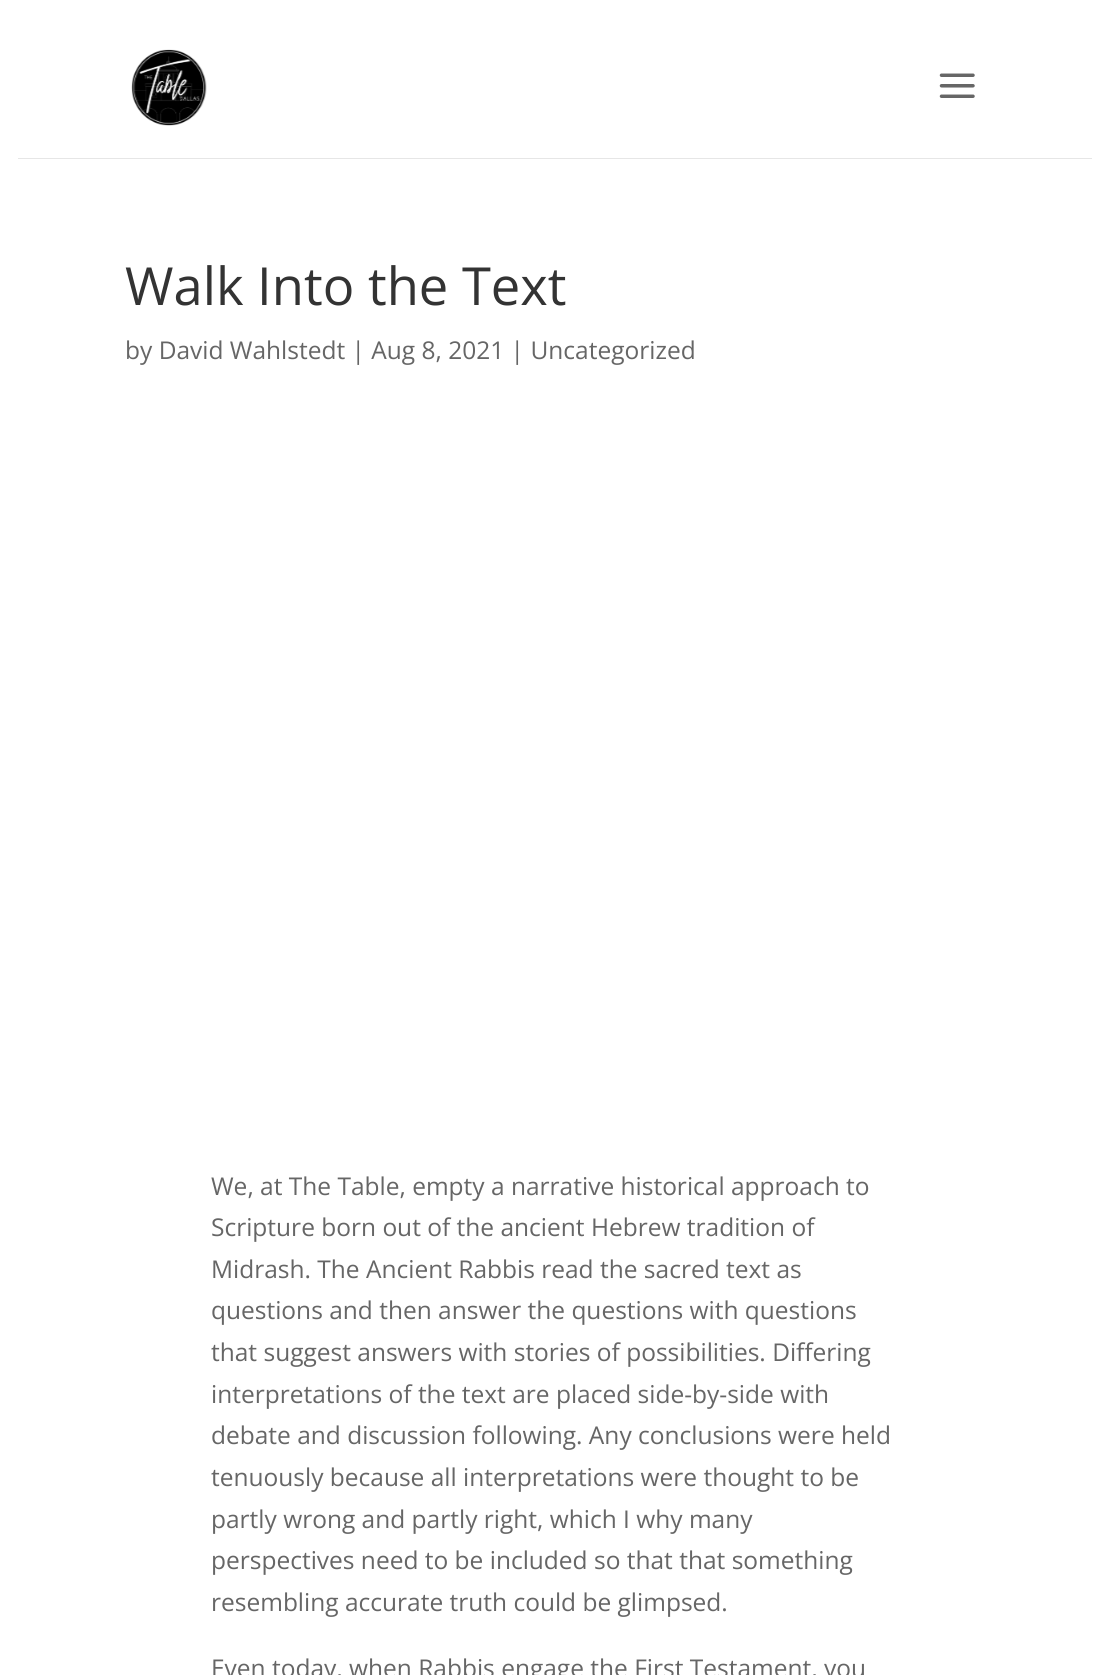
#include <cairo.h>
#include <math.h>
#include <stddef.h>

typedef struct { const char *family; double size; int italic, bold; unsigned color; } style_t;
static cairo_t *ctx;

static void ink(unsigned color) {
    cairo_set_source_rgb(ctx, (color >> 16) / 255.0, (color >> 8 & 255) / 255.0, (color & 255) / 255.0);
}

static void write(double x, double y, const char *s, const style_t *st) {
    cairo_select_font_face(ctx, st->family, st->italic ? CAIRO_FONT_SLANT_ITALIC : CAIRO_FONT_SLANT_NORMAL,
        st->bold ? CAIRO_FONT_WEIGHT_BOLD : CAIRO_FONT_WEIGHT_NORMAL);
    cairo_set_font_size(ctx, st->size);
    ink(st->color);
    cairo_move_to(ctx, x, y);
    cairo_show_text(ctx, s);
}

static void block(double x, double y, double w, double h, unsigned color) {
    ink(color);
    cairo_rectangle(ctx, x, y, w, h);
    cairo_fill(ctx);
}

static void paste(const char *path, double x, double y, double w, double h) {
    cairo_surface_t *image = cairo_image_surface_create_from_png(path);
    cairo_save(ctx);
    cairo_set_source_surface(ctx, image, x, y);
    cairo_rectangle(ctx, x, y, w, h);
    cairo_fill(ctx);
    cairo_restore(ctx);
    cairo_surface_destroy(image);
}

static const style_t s1 = {"Open Sans", 52.5, 0, 0, 0x333333};
static const style_t s2 = {"Open Sans", 24.5, 0, 0, 0x666666};

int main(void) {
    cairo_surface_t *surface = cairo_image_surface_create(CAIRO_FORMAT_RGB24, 1108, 1675);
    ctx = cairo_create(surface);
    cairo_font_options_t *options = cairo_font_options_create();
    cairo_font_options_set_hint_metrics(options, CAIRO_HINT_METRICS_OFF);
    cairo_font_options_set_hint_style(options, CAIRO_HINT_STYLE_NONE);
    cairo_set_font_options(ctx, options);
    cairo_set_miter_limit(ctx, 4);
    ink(0xffffff);
    cairo_paint(ctx);
    block(18, 158, 1074, 1, 0xe6e6e6);
    paste("pic1.png", 131, 49, 76, 77);
    paste("pic2.png", 939, 73, 36, 25);
    write(125, 305, "Walk Into the Text", &s1);
    write(125, 359, "by David Wahlstedt | Aug 8, 2021 | Uncategorized", &s2);
    write(211, 1195, "We, at The Table, empty a narrative historical approach to", &s2);
    write(211, 1236, "Scripture born out of the ancient Hebrew tradition of", &s2);
    write(211, 1278, "Midrash. The Ancient Rabbis read the sacred text as", &s2);
    write(211, 1319, "questions and then answer the questions with questions", &s2);
    write(211, 1361, "that suggest answers with stories of possibilities. Differing", &s2);
    write(211, 1403, "interpretations of the text are placed side-by-side with", &s2);
    write(211, 1444, "debate and discussion following. Any conclusions were held", &s2);
    write(211, 1486, "tenuously because all interpretations were thought to be", &s2);
    write(211, 1528, "partly wrong and partly right, which I why many", &s2);
    write(211, 1569, "perspectives need to be included so that that something", &s2);
    write(211, 1611, "resembling accurate truth could be glimpsed.", &s2);
    write(211, 1677, "Even today, when Rabbis engage the First Testament, you", &s2);
    cairo_surface_write_to_png(surface, "screenshot.png");
    cairo_font_options_destroy(options);
    cairo_destroy(ctx);
    cairo_surface_destroy(surface);
    return 0;
}
